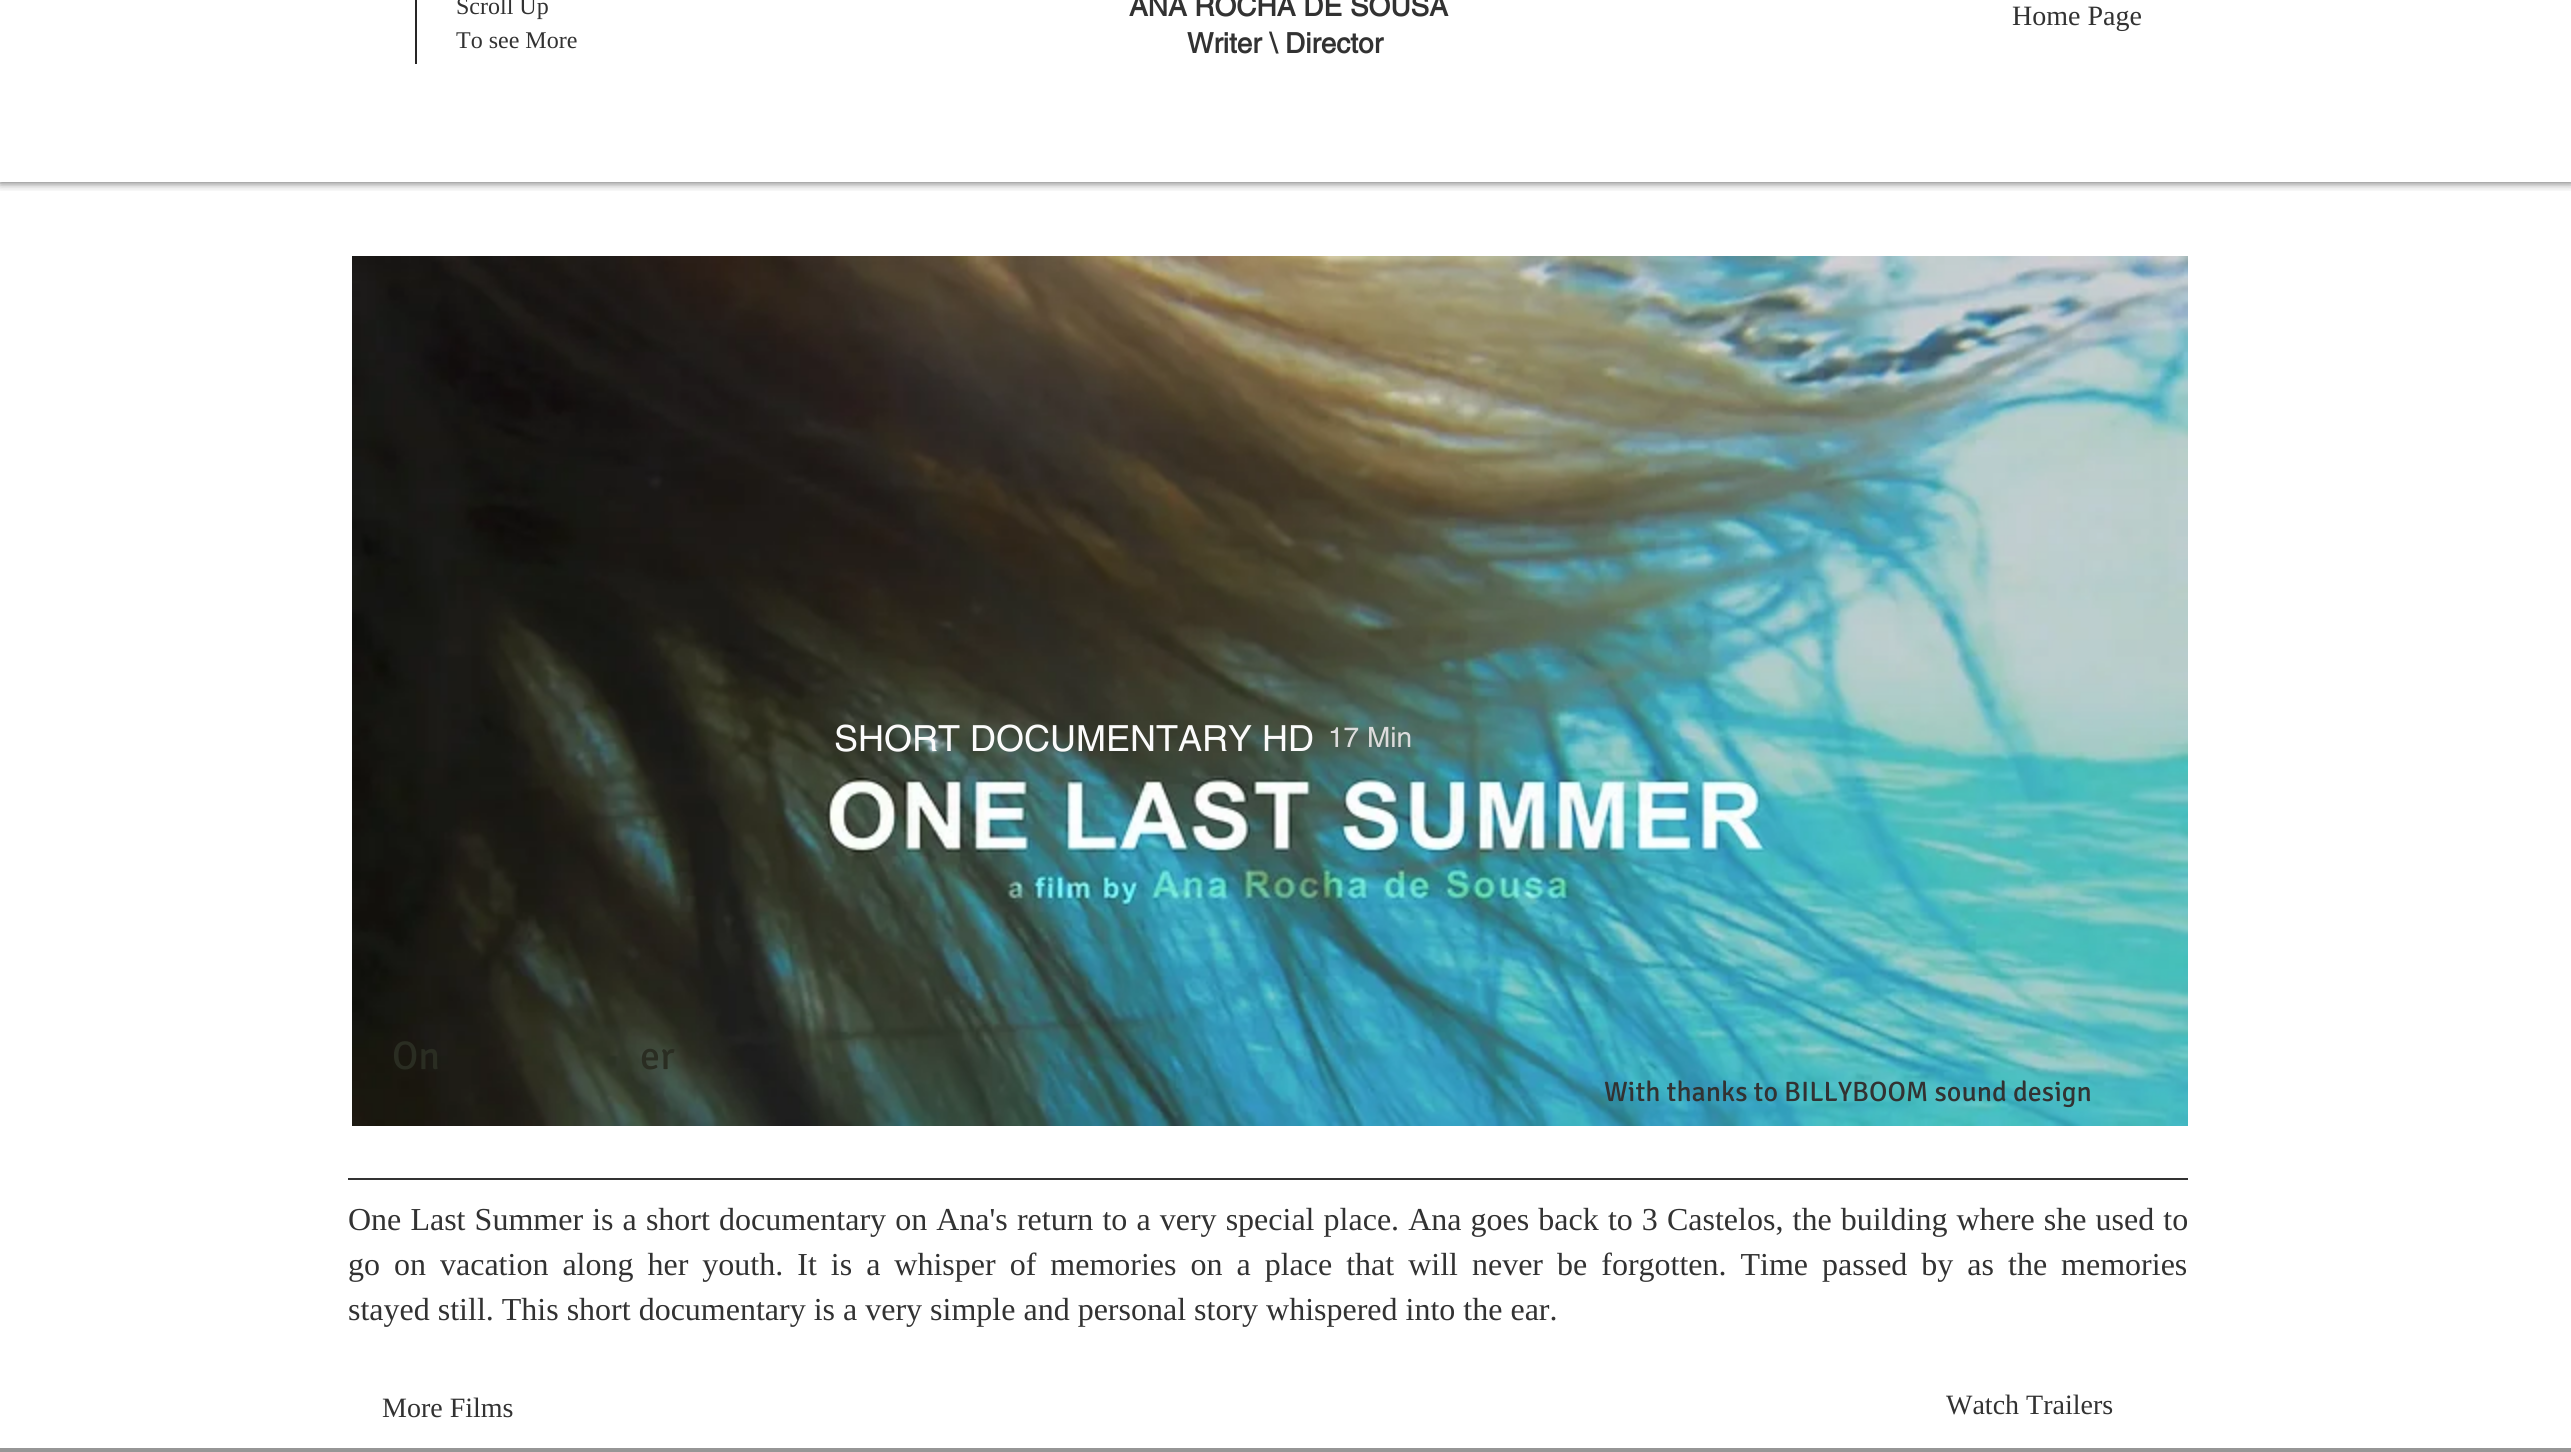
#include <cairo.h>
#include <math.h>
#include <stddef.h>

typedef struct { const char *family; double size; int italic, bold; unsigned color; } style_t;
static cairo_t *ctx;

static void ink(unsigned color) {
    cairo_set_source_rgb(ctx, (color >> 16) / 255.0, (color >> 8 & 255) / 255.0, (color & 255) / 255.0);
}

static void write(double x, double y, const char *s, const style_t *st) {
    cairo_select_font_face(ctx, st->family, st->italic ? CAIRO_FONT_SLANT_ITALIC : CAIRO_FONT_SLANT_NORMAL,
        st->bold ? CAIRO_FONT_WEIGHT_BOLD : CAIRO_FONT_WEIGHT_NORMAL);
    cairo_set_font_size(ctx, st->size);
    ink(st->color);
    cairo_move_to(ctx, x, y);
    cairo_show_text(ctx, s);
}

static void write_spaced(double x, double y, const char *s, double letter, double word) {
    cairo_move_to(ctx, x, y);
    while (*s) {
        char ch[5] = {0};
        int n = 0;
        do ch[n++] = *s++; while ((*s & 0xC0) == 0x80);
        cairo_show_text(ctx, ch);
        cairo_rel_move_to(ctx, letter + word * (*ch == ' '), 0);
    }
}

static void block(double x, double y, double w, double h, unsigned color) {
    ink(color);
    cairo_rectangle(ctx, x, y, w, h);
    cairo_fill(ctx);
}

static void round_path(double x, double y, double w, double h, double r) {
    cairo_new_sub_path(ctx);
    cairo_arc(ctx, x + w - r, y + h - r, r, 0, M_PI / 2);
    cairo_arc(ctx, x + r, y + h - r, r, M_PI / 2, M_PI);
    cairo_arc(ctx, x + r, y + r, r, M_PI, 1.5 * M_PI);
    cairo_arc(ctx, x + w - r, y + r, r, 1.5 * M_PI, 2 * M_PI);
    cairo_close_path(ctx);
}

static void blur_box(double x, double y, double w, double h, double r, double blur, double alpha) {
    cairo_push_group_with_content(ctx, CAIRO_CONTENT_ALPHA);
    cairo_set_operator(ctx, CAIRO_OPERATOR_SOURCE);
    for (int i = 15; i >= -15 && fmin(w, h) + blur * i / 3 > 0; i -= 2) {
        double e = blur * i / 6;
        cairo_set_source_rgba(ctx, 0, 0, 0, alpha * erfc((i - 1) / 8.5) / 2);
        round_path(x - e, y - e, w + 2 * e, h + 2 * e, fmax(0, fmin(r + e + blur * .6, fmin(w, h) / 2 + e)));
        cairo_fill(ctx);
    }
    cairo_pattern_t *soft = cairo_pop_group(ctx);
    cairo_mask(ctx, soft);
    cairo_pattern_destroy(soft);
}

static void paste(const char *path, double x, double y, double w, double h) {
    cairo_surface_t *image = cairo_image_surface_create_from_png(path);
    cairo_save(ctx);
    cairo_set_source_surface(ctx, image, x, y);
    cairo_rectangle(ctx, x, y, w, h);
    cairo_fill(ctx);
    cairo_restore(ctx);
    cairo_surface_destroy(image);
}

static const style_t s1 = {"Liberation Serif", 24, 0, 0, 0x323232};
static const style_t s2 = {"helvetica", 28, 0, 1, 0x323232};
static const style_t s3 = {"Liberation Serif", 28, 0, 0, 0x323232};
static const style_t s4 = {"helvetica", 36, 0, 0, 0xfbfbfb};
static const style_t s5 = {"helvetica", 28, 0, 0, 0xdcdcdc};
static const style_t s6 = {"Signika", 40, 0, 0, 0x2a2d22};
static const style_t s7 = {"Signika", 28, 0, 0, 0x323232};
static const style_t s8 = {"Liberation Serif", 32, 0, 0, 0x323232};

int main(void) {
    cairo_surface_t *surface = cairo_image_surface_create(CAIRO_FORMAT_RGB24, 2571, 1452);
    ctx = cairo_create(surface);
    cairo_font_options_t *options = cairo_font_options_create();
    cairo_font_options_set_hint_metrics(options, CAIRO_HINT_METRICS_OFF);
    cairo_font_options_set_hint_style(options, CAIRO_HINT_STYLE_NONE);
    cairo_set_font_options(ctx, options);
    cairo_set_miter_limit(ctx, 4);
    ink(0xffffff);
    cairo_paint(ctx);
    cairo_save(ctx);
    cairo_rectangle(ctx, 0, 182, 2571, 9);
    cairo_clip(ctx);
    ink(0x000000);
    blur_box(0, -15, 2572, 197, 0, 5, 0.7);
    cairo_restore(ctx);
    ink(0x282626);
    cairo_new_path(ctx);
    cairo_move_to(ctx, 430, -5);
    cairo_line_to(ctx, 416, -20);
    cairo_line_to(ctx, 402, -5);
    cairo_line_to(ctx, 404, -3);
    cairo_line_to(ctx, 415, -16);
    cairo_line_to(ctx, 415, 64);
    cairo_line_to(ctx, 417, 64);
    cairo_line_to(ctx, 417, -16);
    cairo_line_to(ctx, 428, -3);
    cairo_close_path(ctx);
    cairo_fill(ctx);
    write(456, 14, "Scroll Up", &s1);
    write(456, 48, "To see More", &s1);
    write(1129, 16, "ANA ROCHA DE SOUSA", &s2);
    write(1187, 53, "Writer \\ Director", &s2);
    write(2012, 25, "Home Page", &s3);
    paste("pic1.png", 352, 256, 1836, 870);
    write(834, 751, "SHORT DOCUMENTARY HD", &s4);
    write(1328, 747, "17 Min", &s5);
    write(392, 1069, "On", &s6);
    write(640, 1069, "er", &s6);
    write(1604, 1101, "With thanks to BILLYBOOM sound design", &s7);
    block(348, 1178, 1840, 2, 0x323232);
    cairo_select_font_face(ctx, "Liberation Serif", CAIRO_FONT_SLANT_NORMAL, CAIRO_FONT_WEIGHT_NORMAL);
    cairo_set_font_size(ctx, 32);
    write_spaced(348, 1230, "One Last Summer is a short documentary on Ana's return to a very special place. Ana goes back to 3 Castelos, the building where she used to", 0, 1.1);
    write_spaced(348, 1275, "go on vacation along her youth. It is a whisper of memories on a place that will never be forgotten. Time passed by as the memories", 0, 6);
    write(348, 1320, "stayed still. This short documentary is a very simple and personal story whispered into the ear.", &s8);
    write(382, 1417, "More Films", &s3);
    write(1946, 1414, "Watch Trailers", &s3);
    block(0, 1448, 2571, 4, 0x969696);
    cairo_surface_write_to_png(surface, "screenshot.png");
    cairo_font_options_destroy(options);
    cairo_destroy(ctx);
    cairo_surface_destroy(surface);
    return 0;
}
